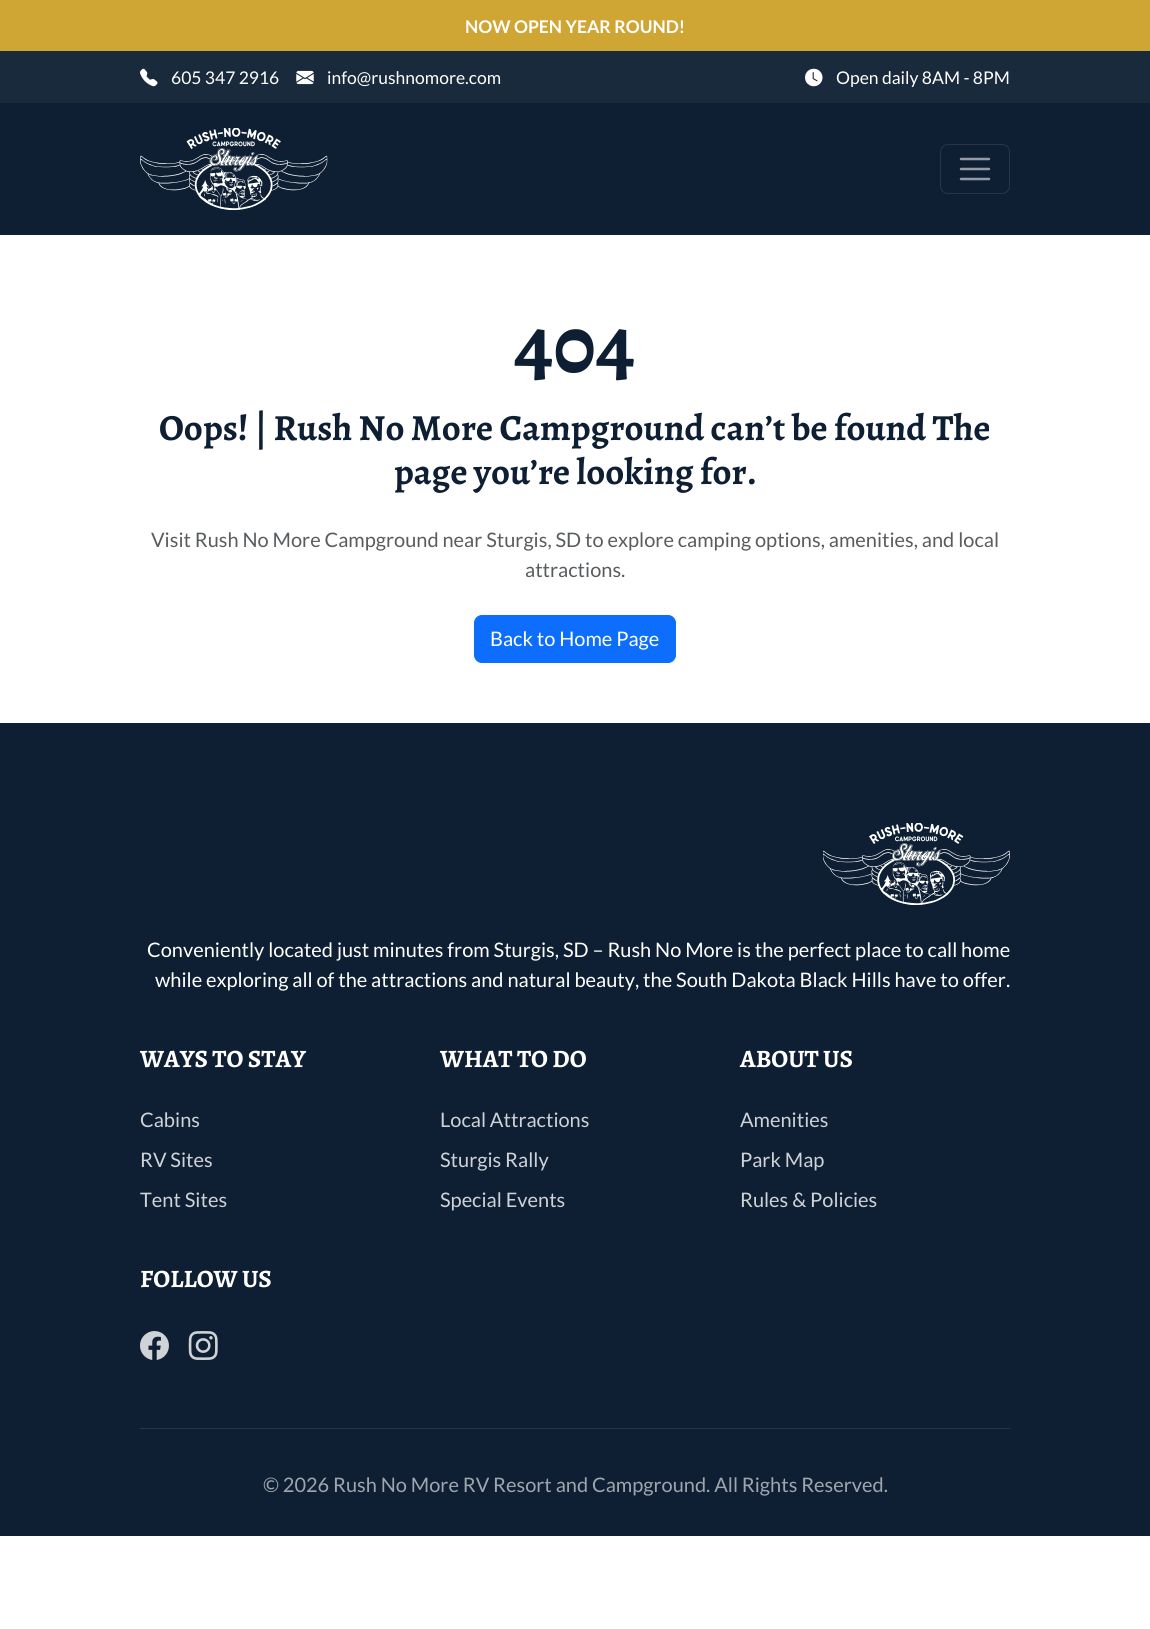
#include <cairo.h>
#include <math.h>
#include <stddef.h>

typedef struct { const char *family; double size; int italic, bold; unsigned color; } style_t;
static cairo_t *ctx;

static void ink(unsigned color) {
    cairo_set_source_rgb(ctx, (color >> 16) / 255.0, (color >> 8 & 255) / 255.0, (color & 255) / 255.0);
}

static void write(double x, double y, const char *s, const style_t *st) {
    cairo_select_font_face(ctx, st->family, st->italic ? CAIRO_FONT_SLANT_ITALIC : CAIRO_FONT_SLANT_NORMAL,
        st->bold ? CAIRO_FONT_WEIGHT_BOLD : CAIRO_FONT_WEIGHT_NORMAL);
    cairo_set_font_size(ctx, st->size);
    ink(st->color);
    cairo_move_to(ctx, x, y);
    cairo_show_text(ctx, s);
}

static void block(double x, double y, double w, double h, unsigned color) {
    ink(color);
    cairo_rectangle(ctx, x, y, w, h);
    cairo_fill(ctx);
}

static void round_path(double x, double y, double w, double h, double r) {
    cairo_new_sub_path(ctx);
    cairo_arc(ctx, x + w - r, y + h - r, r, 0, M_PI / 2);
    cairo_arc(ctx, x + r, y + h - r, r, M_PI / 2, M_PI);
    cairo_arc(ctx, x + r, y + r, r, M_PI, 1.5 * M_PI);
    cairo_arc(ctx, x + w - r, y + r, r, 1.5 * M_PI, 2 * M_PI);
    cairo_close_path(ctx);
}

static void paste(const char *path, double x, double y, double w, double h) {
    cairo_surface_t *image = cairo_image_surface_create_from_png(path);
    cairo_save(ctx);
    cairo_set_source_surface(ctx, image, x, y);
    cairo_rectangle(ctx, x, y, w, h);
    cairo_fill(ctx);
    cairo_restore(ctx);
    cairo_surface_destroy(image);
}

static const style_t s1 = {"Lato", 17.5, 0, 1, 0xffffff};
static const style_t s2 = {"Lato", 17.5, 0, 0, 0xffffff};
static const style_t s3 = {"Alegreya", 84, 0, 1, 0x0e1f33};
static const style_t s4 = {"Alegreya", 36.85, 0, 1, 0x0e1f33};
static const style_t s5 = {"Lato", 20, 0, 0, 0x595c5f};
static const style_t s6 = {"Lato", 20, 0, 0, 0xffffff};
static const style_t s7 = {"Alegreya", 25, 0, 1, 0xffffff};
static const style_t s8 = {"Lato", 20, 0, 0, 0xcfd2d6};
static const style_t s9 = {"Lato", 20, 0, 0, 0x9fa5ad};

int main(void) {
    cairo_surface_t *surface = cairo_image_surface_create(CAIRO_FORMAT_RGB24, 1150, 1629);
    ctx = cairo_create(surface);
    cairo_font_options_t *options = cairo_font_options_create();
    cairo_font_options_set_hint_metrics(options, CAIRO_HINT_METRICS_OFF);
    cairo_font_options_set_hint_style(options, CAIRO_HINT_STYLE_NONE);
    cairo_set_font_options(ctx, options);
    cairo_set_miter_limit(ctx, 4);
    ink(0xffffff);
    cairo_paint(ctx);
    block(0, 0, 1150, 51, 0xcfa534);
    write(465, 33, "NOW OPEN YEAR ROUND!", &s1);
    block(0, 51, 1150, 52, 0x1a2a3d);
    paste("pic1.png", 140, 68, 18, 19);
    write(171, 84, "605 347 2916", &s2);
    paste("pic2.png", 296, 70, 18, 15);
    write(327, 84, "info@rushnomore.com", &s2);
    paste("pic3.png", 805, 68, 18, 19);
    write(836, 84, "Open daily 8AM - 8PM", &s2);
    block(0, 103, 1150, 132, 0x0e1f33);
    paste("pic4.png", 140, 128, 188, 82);
    round_path(940.5, 144.5, 69, 49, 7.5);
    ink(0x263547);
    cairo_set_line_width(ctx, 1);
    cairo_stroke(ctx);
    cairo_new_path(ctx);
    cairo_move_to(ctx, 961, 159);
    cairo_line_to(ctx, 989, 159);
    cairo_move_to(ctx, 961, 169);
    cairo_line_to(ctx, 989, 169);
    cairo_move_to(ctx, 961, 179);
    cairo_line_to(ctx, 989, 179);
    ink(0x939aa3);
    cairo_set_line_width(ctx, 2.5);
    cairo_set_line_cap(ctx, CAIRO_LINE_CAP_ROUND);
    cairo_stroke(ctx);
    write(514, 372, "404", &s3);
    write(159, 440, "Oops! | Rush No More Campground can’t be found The", &s4);
    write(394, 484, "page you’re looking for.", &s4);
    write(151, 547, "Visit Rush No More Campground near Sturgis, SD to explore camping options, amenities, and local", &s5);
    write(525, 577, "attractions.", &s5);
    ink(0x0d6efd);
    round_path(474.5, 615.5, 201, 47, 7.5);
    cairo_fill_preserve(ctx);
    cairo_set_line_width(ctx, 1);
    cairo_set_line_cap(ctx, CAIRO_LINE_CAP_BUTT);
    cairo_stroke(ctx);
    write(490, 646, "Back to Home Page", &s6);
    block(0, 723, 1150, 813, 0x0e1f33);
    paste("pic5.png", 823, 823, 187, 82);
    write(147, 957, "Conveniently located just minutes from Sturgis, SD – Rush No More is the perfect place to call home", &s6);
    write(155, 987, "while exploring all of the attractions and natural beauty, the South Dakota Black Hills have to offer.", &s6);
    write(140, 1067, "WAYS TO STAY", &s7);
    write(140, 1127, "Cabins", &s8);
    write(140, 1167, "RV Sites", &s8);
    write(140, 1207, "Tent Sites", &s8);
    write(440, 1067, "WHAT TO DO", &s7);
    write(440, 1127, "Local Attractions", &s8);
    write(440, 1167, "Sturgis Rally", &s8);
    write(440, 1207, "Special Events", &s8);
    write(740, 1067, "ABOUT US", &s7);
    write(740, 1127, "Amenities", &s8);
    write(740, 1167, "Park Map", &s8);
    write(740, 1207, "Rules & Policies", &s8);
    write(140, 1287, "FOLLOW US", &s7);
    paste("pic6.png", 140, 1331, 29, 29);
    paste("pic7.png", 188, 1331, 30, 29);
    block(140, 1428, 870, 1, 0x263547);
    write(263, 1492, "© 2026 Rush No More RV Resort and Campground. All Rights Reserved.", &s9);
    cairo_surface_write_to_png(surface, "screenshot.png");
    cairo_font_options_destroy(options);
    cairo_destroy(ctx);
    cairo_surface_destroy(surface);
    return 0;
}
